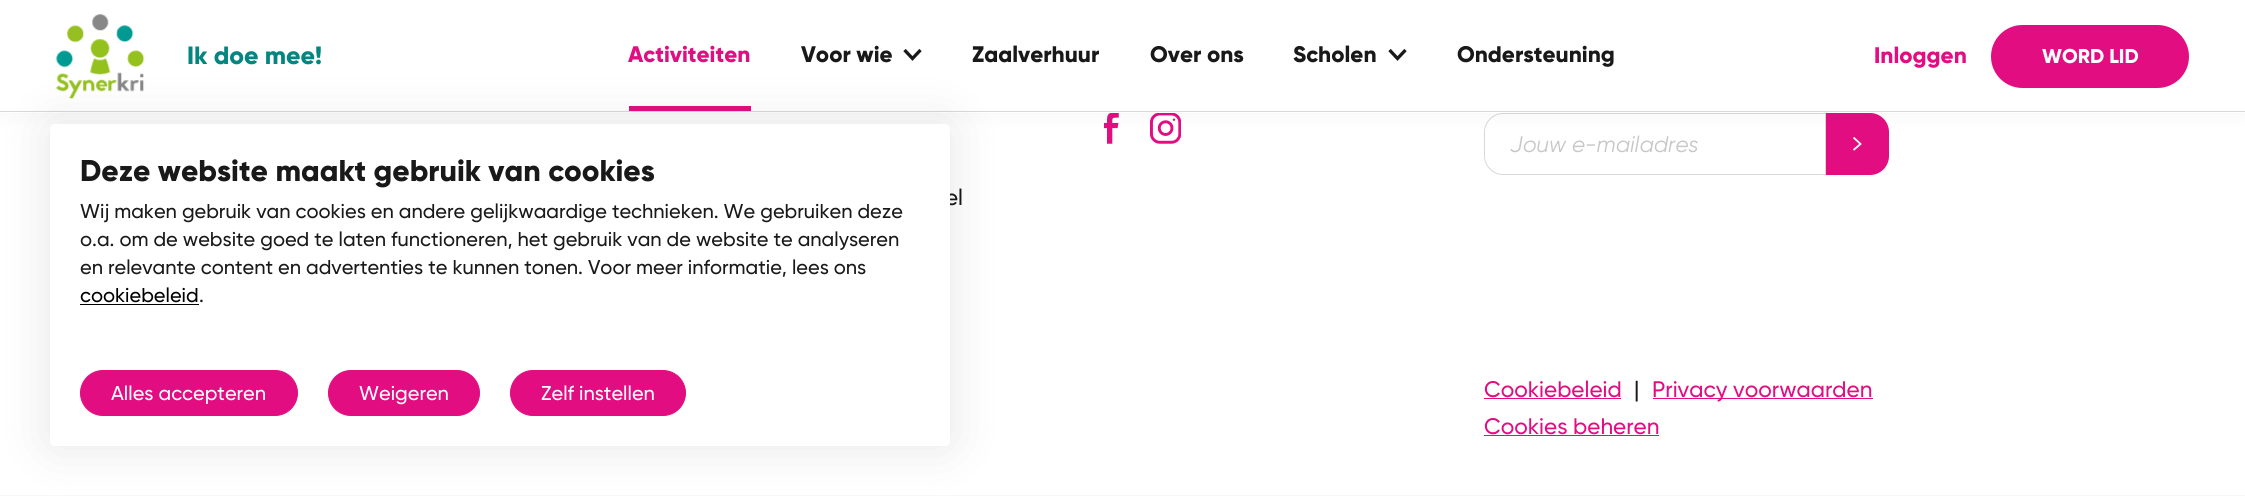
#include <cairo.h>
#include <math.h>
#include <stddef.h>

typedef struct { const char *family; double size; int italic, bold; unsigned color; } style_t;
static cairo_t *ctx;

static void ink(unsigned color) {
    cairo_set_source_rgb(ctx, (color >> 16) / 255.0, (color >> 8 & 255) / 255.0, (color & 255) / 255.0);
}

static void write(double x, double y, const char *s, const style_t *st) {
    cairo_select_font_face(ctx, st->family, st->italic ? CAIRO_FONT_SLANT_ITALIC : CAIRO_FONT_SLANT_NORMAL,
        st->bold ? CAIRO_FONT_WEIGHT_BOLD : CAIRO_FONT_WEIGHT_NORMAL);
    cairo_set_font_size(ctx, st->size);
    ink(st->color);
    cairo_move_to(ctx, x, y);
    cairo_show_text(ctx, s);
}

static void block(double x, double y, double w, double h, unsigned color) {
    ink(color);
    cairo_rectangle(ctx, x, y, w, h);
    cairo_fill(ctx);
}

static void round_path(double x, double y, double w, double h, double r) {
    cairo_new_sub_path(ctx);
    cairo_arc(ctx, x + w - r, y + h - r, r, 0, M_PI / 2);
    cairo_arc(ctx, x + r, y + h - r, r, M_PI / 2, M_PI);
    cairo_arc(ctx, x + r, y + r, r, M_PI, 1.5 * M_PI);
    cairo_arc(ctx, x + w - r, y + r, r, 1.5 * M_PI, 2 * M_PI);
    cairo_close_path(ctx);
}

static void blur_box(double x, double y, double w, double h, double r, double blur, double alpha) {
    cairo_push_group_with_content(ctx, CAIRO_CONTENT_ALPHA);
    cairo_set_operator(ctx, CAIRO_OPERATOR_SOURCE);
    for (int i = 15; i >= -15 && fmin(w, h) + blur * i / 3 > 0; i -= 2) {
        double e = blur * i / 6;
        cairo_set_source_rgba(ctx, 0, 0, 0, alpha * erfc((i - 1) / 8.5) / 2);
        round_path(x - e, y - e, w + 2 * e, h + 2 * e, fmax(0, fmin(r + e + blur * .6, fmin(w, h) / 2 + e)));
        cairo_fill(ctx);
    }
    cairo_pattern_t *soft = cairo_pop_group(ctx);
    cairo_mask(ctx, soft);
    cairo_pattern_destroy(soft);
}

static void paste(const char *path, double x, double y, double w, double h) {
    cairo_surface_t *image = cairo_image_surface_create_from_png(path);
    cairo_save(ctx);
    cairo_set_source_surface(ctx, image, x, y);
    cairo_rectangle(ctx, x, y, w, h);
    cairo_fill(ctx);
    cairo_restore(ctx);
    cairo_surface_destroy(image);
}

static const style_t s1 = {"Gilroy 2", 25, 0, 0, 0x04857f};
static const style_t s2 = {"Gilroy 2", 22.5, 0, 0, 0xe30d82};
static const style_t s3 = {"Gilroy 2", 22.5, 0, 0, 0x191919};
static const style_t s4 = {"Gilroy 2", 20, 0, 0, 0xffffff};
static const style_t s5 = {"Gilroy", 22.5, 0, 0, 0x191919};
static const style_t s6 = {"Gilroy", 22.5, 1, 0, 0xc7c7c7};
static const style_t s7 = {"Gilroy", 22.5, 0, 0, 0xe30d82};
static const style_t s8 = {"Gilroy 2", 30, 0, 0, 0x191919};
static const style_t s9 = {"Gilroy", 20, 0, 0, 0x191919};
static const style_t s10 = {"Gilroy", 20, 0, 0, 0x000000};
static const style_t s11 = {"Gilroy", 20, 0, 0, 0xffffff};

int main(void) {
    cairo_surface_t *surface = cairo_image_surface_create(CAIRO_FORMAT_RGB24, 2245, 496);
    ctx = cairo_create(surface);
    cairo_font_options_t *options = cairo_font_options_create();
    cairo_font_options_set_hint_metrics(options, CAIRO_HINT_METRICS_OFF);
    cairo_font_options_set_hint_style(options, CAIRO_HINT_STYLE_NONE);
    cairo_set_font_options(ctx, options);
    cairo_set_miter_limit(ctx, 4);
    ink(0xf7f7f7);
    cairo_paint(ctx);
    block(0, 113, 2245, 382, 0xffffff);
    paste("pic2.png", 1104, 113, 15, 31);
    paste("pic3.png", 1150, 113, 31, 31);
    cairo_new_path(ctx);
    cairo_move_to(ctx, 1503, 113.5);
    cairo_line_to(ctx, 1825.5, 113.5);
    cairo_line_to(ctx, 1825.5, 174.5);
    cairo_line_to(ctx, 1503, 174.5);
    cairo_curve_to(ctx, 1493, 174.5, 1484.5, 166, 1484.5, 156);
    cairo_line_to(ctx, 1484.5, 132);
    cairo_curve_to(ctx, 1484.5, 122, 1493, 113.5, 1503, 113.5);
    cairo_close_path(ctx);
    ink(0xd8d8d8);
    cairo_set_line_width(ctx, 1);
    cairo_stroke(ctx);
    ink(0xe30d82);
    cairo_new_path(ctx);
    cairo_move_to(ctx, 1826, 113);
    cairo_line_to(ctx, 1870, 113);
    cairo_curve_to(ctx, 1880.5, 113, 1889, 121.5, 1889, 132);
    cairo_line_to(ctx, 1889, 156);
    cairo_curve_to(ctx, 1889, 166.5, 1880.5, 175, 1870, 175);
    cairo_line_to(ctx, 1826, 175);
    cairo_close_path(ctx);
    cairo_fill(ctx);
    cairo_new_path(ctx);
    cairo_move_to(ctx, 1853.5, 150);
    cairo_line_to(ctx, 1860.5, 144);
    cairo_line_to(ctx, 1853.5, 137.5);
    ink(0xffffff);
    cairo_set_line_width(ctx, 1.8);
    cairo_stroke(ctx);
    ink(0x191919);
    blur_box(0, 0, 2245, 113, 0, 9.5, 0.05);
    block(0, 0, 2245, 113, 0xffffff);
    block(0, 111, 2245, 1, 0xd8d8d8);
    paste("pic1.png", 56, 14, 89, 85);
    write(187, 64, "Ik doe mee!", &s1);
    write(628, 62, "Activiteiten", &s2);
    block(629, 106, 122, 5, 0xe30d82);
    write(801, 62, "Voor wie", &s3);
    cairo_new_path(ctx);
    cairo_move_to(ctx, 904.5, 50);
    cairo_line_to(ctx, 912.5, 58.5);
    cairo_line_to(ctx, 920.5, 50);
    cairo_set_line_width(ctx, 3.3);
    cairo_stroke(ctx);
    write(972, 62, "Zaalverhuur", &s3);
    write(1150, 62, "Over ons", &s3);
    write(1293, 62, "Scholen", &s3);
    cairo_new_path(ctx);
    cairo_move_to(ctx, 1389.5, 50);
    cairo_line_to(ctx, 1397.5, 58.5);
    cairo_line_to(ctx, 1405.5, 50);
    cairo_stroke(ctx);
    write(1457, 62, "Ondersteuning", &s3);
    write(1874, 63, "Inloggen", &s2);
    round_path(1991, 25, 198, 63, 31.5);
    cairo_fill(ctx);
    write(2042, 63, "WORD LID", &s4);
    write(945, 205, "el", &s5);
    write(1510, 152, "Jouw e-mailadres", &s6);
    write(1484, 397, "Cookiebeleid", &s7);
    block(1484, 398, 137, 1, 0xe30d82);
    write(1634, 397, "|", &s5);
    block(1653, 398, 220, 1, 0xe30d82);
    write(1652, 397, "Privacy voorwaarden", &s7);
    write(1484, 434, "Cookies beheren", &s7);
    block(1484, 435, 175, 1, 0xe30d82);
    ink(0x000000);
    blur_box(50, 124, 900, 322, 5, 25, 0.1);
    ink(0xffffff);
    round_path(50, 124, 900, 322, 5);
    cairo_fill(ctx);
    write(80, 181, "Deze website maakt gebruik van cookies", &s8);
    write(80, 218, "Wij maken gebruik van cookies en andere gelijkwaardige technieken. We gebruiken deze", &s9);
    write(80, 246, "o.a. om de website goed te laten functioneren, het gebruik van de website te analyseren", &s9);
    write(80, 274, "en relevante content en advertenties te kunnen tonen. Voor meer informatie, lees ons", &s9);
    write(80, 302, "cookiebeleid", &s10);
    block(80, 304, 119, 1, 0x000000);
    write(199, 302, ".", &s9);
    ink(0xe30d82);
    round_path(80.5, 370.5, 217, 45, 22.5);
    cairo_fill_preserve(ctx);
    cairo_set_line_width(ctx, 1);
    cairo_stroke(ctx);
    write(111, 400, "Alles accepteren", &s11);
    ink(0xe30d82);
    round_path(328.5, 370.5, 151, 45, 22.5);
    cairo_fill_preserve(ctx);
    cairo_stroke(ctx);
    write(359, 400, "Weigeren", &s11);
    ink(0xe30d82);
    round_path(510.5, 370.5, 175, 45, 22.5);
    cairo_fill_preserve(ctx);
    cairo_stroke(ctx);
    write(541, 400, "Zelf instellen", &s11);
    cairo_surface_write_to_png(surface, "screenshot.png");
    cairo_font_options_destroy(options);
    cairo_destroy(ctx);
    cairo_surface_destroy(surface);
    return 0;
}
